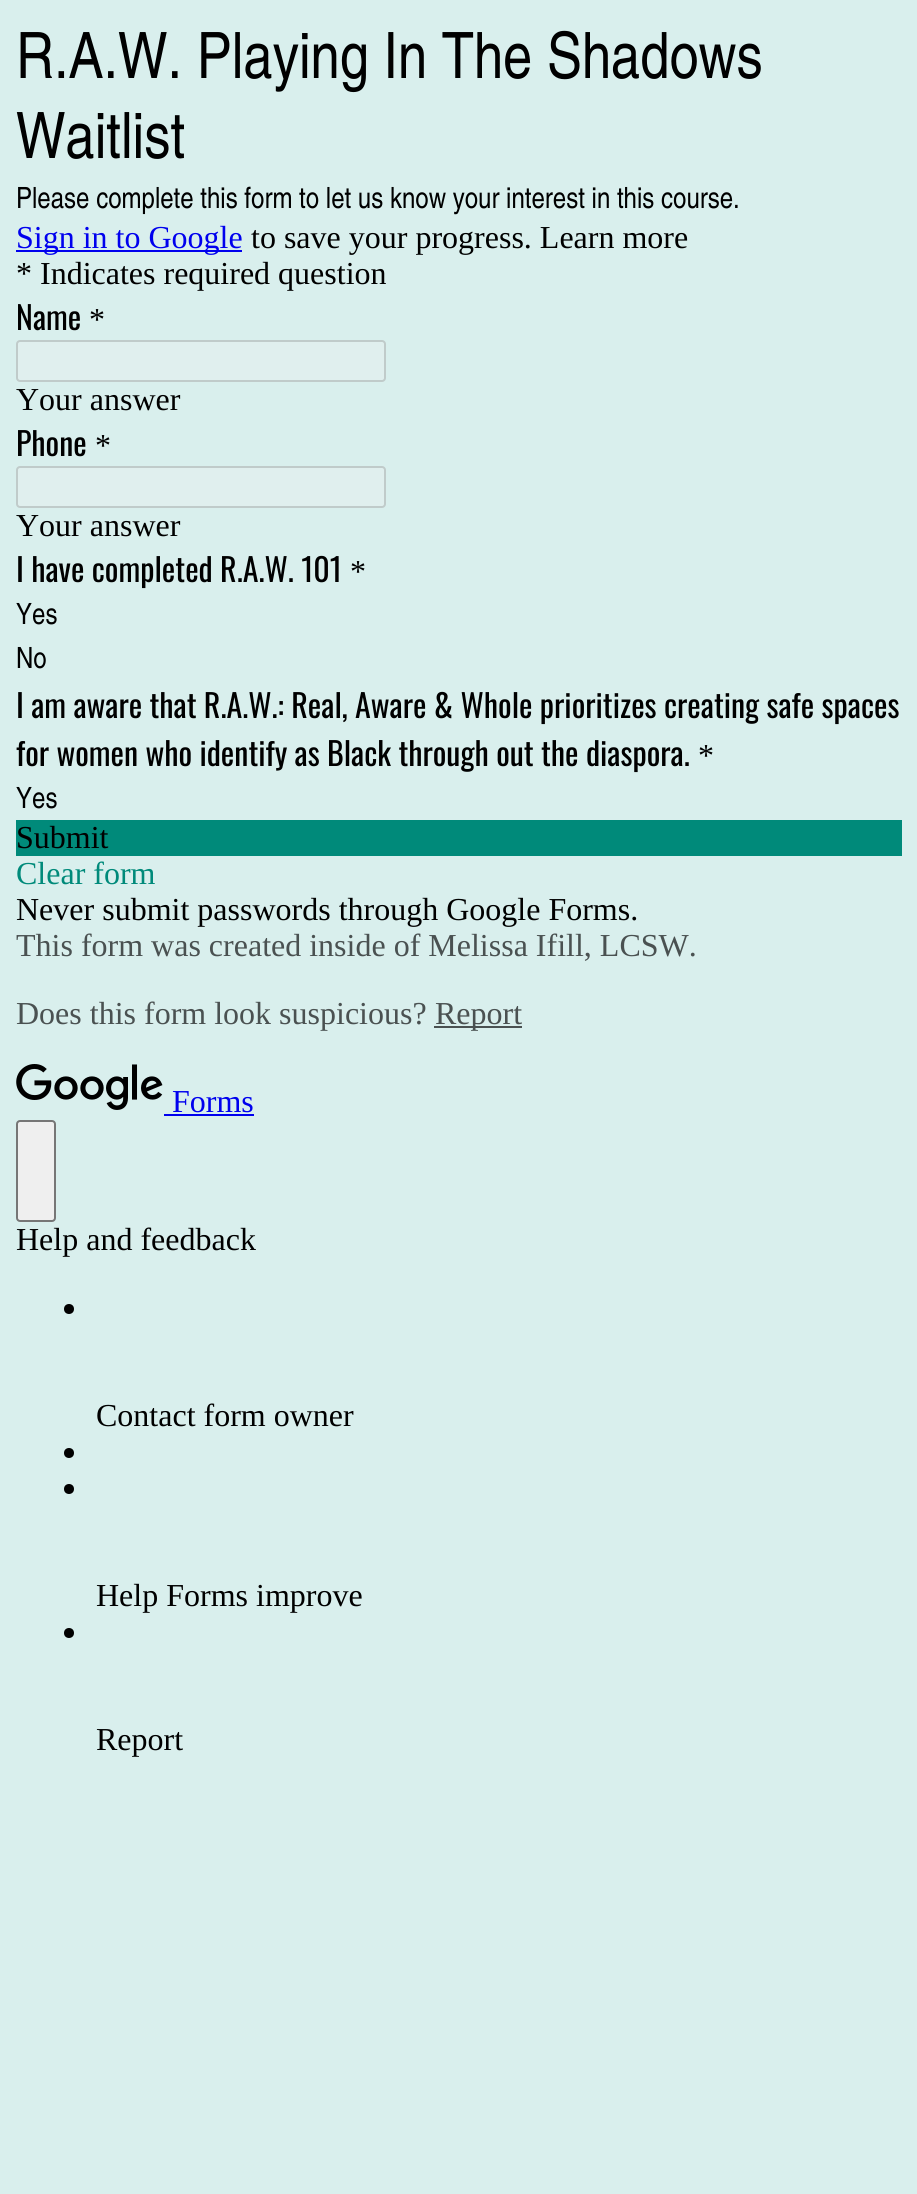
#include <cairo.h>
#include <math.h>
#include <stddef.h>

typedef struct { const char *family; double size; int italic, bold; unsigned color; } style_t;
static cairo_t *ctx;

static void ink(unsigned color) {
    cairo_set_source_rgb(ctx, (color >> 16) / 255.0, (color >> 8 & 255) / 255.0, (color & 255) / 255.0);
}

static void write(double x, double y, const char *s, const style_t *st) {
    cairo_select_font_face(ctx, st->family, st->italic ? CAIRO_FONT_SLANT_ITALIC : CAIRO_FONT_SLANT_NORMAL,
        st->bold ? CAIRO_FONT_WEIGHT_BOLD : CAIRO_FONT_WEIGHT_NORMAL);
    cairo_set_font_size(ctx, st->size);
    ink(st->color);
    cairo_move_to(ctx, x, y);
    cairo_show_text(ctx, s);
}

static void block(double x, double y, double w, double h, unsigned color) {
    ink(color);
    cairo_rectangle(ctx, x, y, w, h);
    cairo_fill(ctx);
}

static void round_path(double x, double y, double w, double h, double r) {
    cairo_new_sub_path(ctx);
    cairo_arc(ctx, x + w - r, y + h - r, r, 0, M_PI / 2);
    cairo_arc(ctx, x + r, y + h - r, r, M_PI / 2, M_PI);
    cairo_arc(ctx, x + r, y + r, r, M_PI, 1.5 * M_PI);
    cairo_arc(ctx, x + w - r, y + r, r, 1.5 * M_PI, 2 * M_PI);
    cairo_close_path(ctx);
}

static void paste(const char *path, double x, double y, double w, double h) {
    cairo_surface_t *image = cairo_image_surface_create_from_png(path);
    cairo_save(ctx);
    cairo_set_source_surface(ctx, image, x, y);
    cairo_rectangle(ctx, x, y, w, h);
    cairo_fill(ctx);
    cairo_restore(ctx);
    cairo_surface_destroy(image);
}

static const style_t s1 = {"TeX Gyre Heros Cn", 64, 0, 0, 0x000000};
static const style_t s2 = {"TeX Gyre Heros Cn", 29.3, 0, 0, 0x000000};
static const style_t s3 = {"Liberation Serif", 32, 0, 0, 0x0000ee};
static const style_t s4 = {"Liberation Serif", 32, 0, 0, 0x000000};
static const style_t s5 = {"Oswald", 32, 0, 0, 0x000000};
static const style_t s6 = {"Liberation Serif", 32, 0, 0, 0x008a7a};
static const style_t s7 = {"Liberation Serif", 32, 0, 0, 0x4a5151};

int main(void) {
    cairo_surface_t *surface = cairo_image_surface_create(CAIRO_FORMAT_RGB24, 917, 2194);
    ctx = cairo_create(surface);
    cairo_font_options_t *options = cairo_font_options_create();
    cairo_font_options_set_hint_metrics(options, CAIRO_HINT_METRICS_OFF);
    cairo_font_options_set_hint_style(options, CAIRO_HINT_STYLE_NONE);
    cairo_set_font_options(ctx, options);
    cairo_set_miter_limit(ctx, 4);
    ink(0xd9efed);
    cairo_paint(ctx);
    write(16, 78, "R.A.W. Playing In The Shadows", &s1);
    write(16, 158, "Waitlist", &s1);
    write(16, 208, "Please complete this form to let us know your interest in this course.", &s2);
    block(16, 250, 226, 2, 0x0000ee);
    write(16, 248, "Sign in to Google", &s3);
    write(251, 248, "to save your progress. Learn more", &s4);
    write(16, 284, "* Indicates required question", &s4);
    write(16, 330, "Name", &s5);
    write(89, 330, "*", &s4);
    ink(0xe0efee);
    round_path(17, 341, 368, 40, 3);
    cairo_fill_preserve(ctx);
    ink(0xc0cbca);
    cairo_stroke(ctx);
    write(16, 410, "Your answer", &s4);
    write(16, 456, "Phone", &s5);
    write(95, 456, "*", &s4);
    ink(0xe0efee);
    round_path(17, 467, 368, 40, 3);
    cairo_fill_preserve(ctx);
    ink(0xc0cbca);
    cairo_stroke(ctx);
    write(16, 536, "Your answer", &s4);
    write(16, 582, "I have completed R.A.W. 101", &s5);
    write(350, 582, "*", &s4);
    write(16, 624, "Yes", &s2);
    write(16, 668, "No", &s2);
    write(16, 718, "I am aware that R.A.W.: Real, Aware & Whole prioritizes creating safe spaces", &s5);
    write(16, 766, "for women who identify as Black through out the diaspora.", &s5);
    write(698, 766, "*", &s4);
    write(16, 808, "Yes", &s2);
    block(16, 820, 886, 36, 0x008a7a);
    write(16, 848, "Submit", &s4);
    write(16, 884, "Clear form", &s6);
    write(16, 920, "Never submit passwords through Google Forms.", &s4);
    write(16, 956, "This form was created inside of Melissa Ifill, LCSW.", &s7);
    write(16, 1024, "Does this form look suspicious?", &s7);
    block(434, 1026, 88, 2, 0x4a5151);
    write(435, 1024, "Report", &s7);
    paste("pic1.png", 16, 1064, 147, 46);
    write(172, 1112, "Forms", &s3);
    block(164, 1114, 90, 2, 0x0000ee);
    ink(0xefefef);
    round_path(17, 1121, 38, 100, 3);
    cairo_fill_preserve(ctx);
    ink(0x767676);
    cairo_stroke(ctx);
    write(16, 1250, "Help and feedback", &s4);
    cairo_new_path(ctx);
    cairo_arc(ctx, 69, 1309, 5, 0, 2 * M_PI);
    cairo_fill(ctx);
    write(96, 1426, "Contact form owner", &s4);
    cairo_new_path(ctx);
    cairo_arc(ctx, 69, 1453, 5, 0, 2 * M_PI);
    cairo_fill(ctx);
    cairo_arc(ctx, 69, 1489, 5, 0, 2 * M_PI);
    cairo_fill(ctx);
    write(96, 1606, "Help Forms improve", &s4);
    cairo_new_path(ctx);
    cairo_arc(ctx, 69, 1633, 5, 0, 2 * M_PI);
    cairo_fill(ctx);
    write(96, 1750, "Report", &s4);
    cairo_surface_write_to_png(surface, "screenshot.png");
    cairo_font_options_destroy(options);
    cairo_destroy(ctx);
    cairo_surface_destroy(surface);
    return 0;
}
